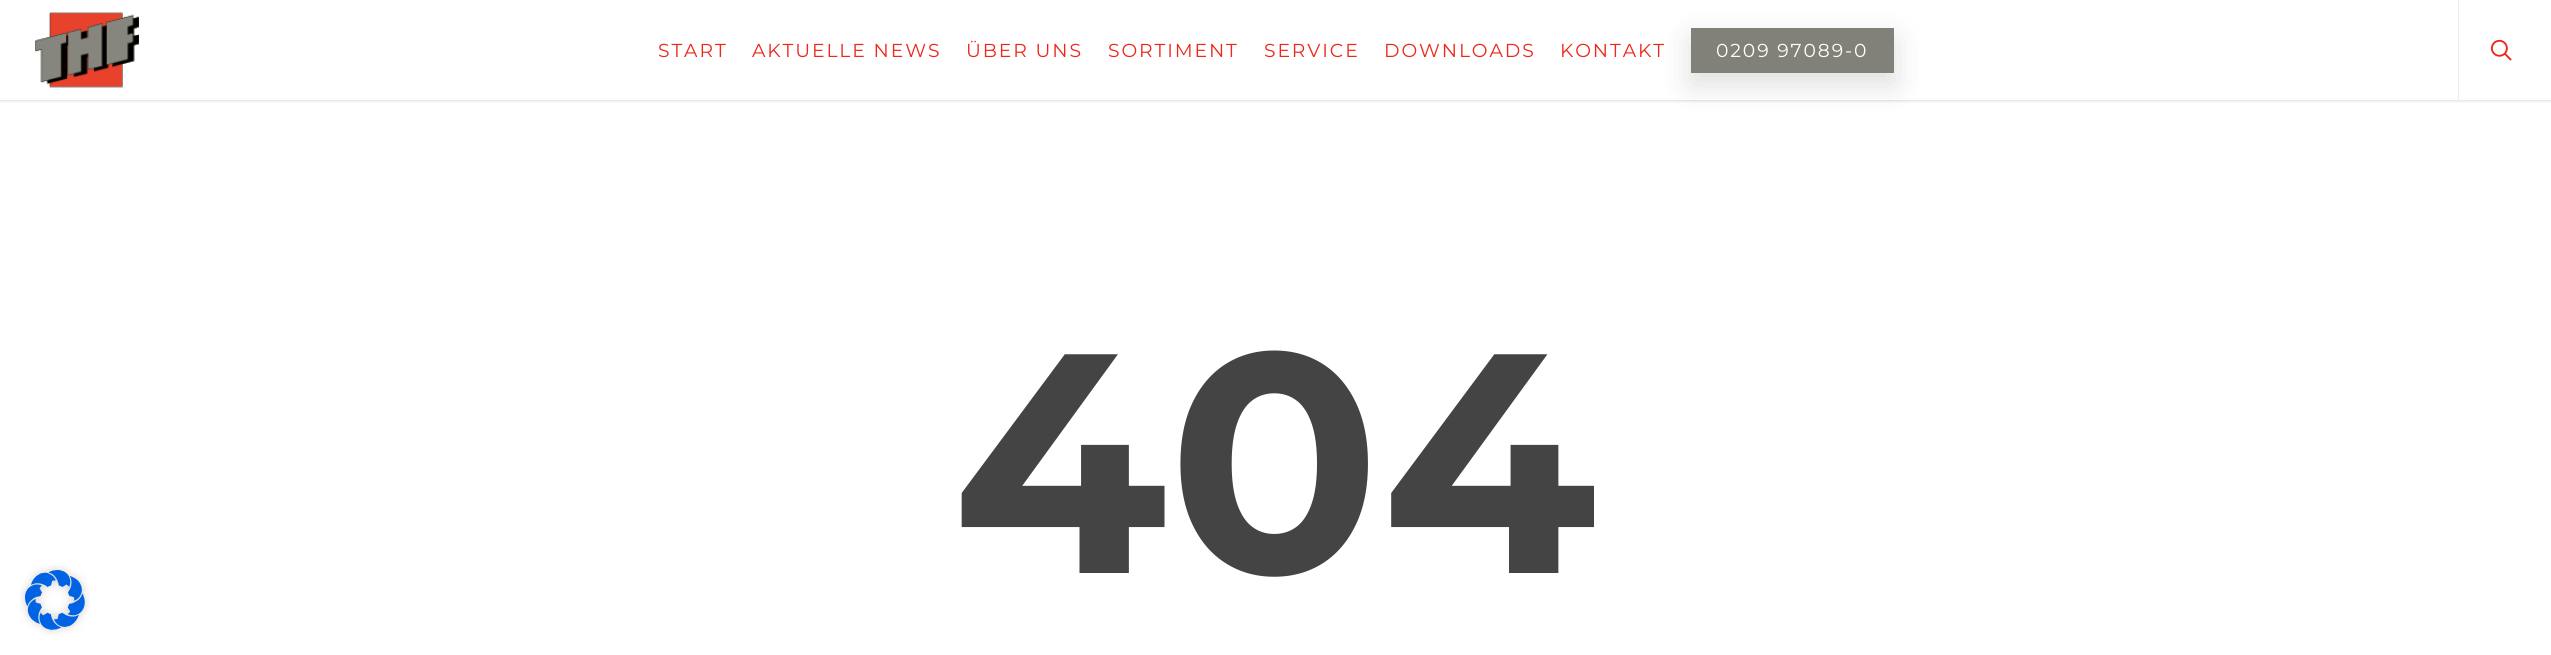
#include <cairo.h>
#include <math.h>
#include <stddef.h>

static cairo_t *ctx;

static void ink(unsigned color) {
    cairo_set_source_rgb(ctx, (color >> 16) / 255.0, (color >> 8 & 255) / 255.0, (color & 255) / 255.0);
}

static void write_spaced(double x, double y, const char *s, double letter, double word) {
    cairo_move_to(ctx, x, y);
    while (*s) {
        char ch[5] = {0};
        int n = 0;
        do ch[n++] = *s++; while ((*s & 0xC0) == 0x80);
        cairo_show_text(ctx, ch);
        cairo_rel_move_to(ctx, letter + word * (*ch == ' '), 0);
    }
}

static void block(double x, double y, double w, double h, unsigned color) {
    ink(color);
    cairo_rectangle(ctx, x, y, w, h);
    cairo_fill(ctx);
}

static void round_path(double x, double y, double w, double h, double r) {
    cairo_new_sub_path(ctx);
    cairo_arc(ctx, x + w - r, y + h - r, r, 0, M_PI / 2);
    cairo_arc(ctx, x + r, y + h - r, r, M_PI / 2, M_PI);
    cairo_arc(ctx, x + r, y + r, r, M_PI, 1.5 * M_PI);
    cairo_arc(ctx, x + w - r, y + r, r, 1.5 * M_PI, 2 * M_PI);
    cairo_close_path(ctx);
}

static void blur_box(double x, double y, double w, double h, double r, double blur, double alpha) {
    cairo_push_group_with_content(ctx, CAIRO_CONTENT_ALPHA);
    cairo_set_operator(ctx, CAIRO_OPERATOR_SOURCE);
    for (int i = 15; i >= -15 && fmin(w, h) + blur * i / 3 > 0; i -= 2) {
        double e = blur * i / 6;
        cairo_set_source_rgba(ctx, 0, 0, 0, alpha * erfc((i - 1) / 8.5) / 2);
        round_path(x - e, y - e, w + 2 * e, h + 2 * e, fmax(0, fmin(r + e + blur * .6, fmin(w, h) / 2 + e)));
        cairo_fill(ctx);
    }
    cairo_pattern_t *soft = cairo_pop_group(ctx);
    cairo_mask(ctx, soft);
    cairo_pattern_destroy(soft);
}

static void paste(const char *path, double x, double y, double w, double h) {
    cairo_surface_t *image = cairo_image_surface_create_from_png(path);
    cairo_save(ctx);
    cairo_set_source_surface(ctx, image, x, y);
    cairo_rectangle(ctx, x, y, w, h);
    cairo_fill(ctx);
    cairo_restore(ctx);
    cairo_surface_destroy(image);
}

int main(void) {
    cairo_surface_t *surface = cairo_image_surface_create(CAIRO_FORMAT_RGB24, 2551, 655);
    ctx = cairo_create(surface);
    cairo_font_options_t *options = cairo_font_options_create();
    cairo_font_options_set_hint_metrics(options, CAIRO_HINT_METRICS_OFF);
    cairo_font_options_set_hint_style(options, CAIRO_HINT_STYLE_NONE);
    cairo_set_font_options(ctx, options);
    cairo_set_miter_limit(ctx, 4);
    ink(0xffffff);
    cairo_paint(ctx);
    cairo_save(ctx);
    cairo_rectangle(ctx, 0, 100, 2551, 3);
    cairo_clip(ctx);
    ink(0x000000);
    blur_box(0, 0, 2551, 100, 0, 2, 0.22);
    cairo_restore(ctx);
    paste("pic1.png", 35, 12, 104, 76);
    cairo_select_font_face(ctx, "Montserrat", CAIRO_FONT_SLANT_NORMAL, CAIRO_FONT_WEIGHT_NORMAL);
    cairo_set_font_size(ctx, 18.75);
    ink(0xed271a);
    write_spaced(658, 57, "START", 1.9, 0);
    write_spaced(752, 57, "AKTUELLE NEWS", 1.9, 0);
    write_spaced(966, 57, "ÜBER UNS", 1.9, 0);
    write_spaced(1108, 57, "SORTIMENT", 1.9, 0);
    write_spaced(1264, 57, "SERVICE", 1.9, 0);
    write_spaced(1384, 57, "DOWNLOADS", 1.9, 0);
    write_spaced(1560, 57, "KONTAKT", 1.9, 0);
    ink(0x000000);
    blur_box(1691, 40, 203, 45, 0, 15.5, 0.13);
    block(1691, 28, 203, 45, 0x818179);
    ink(0xffffff);
    write_spaced(1716, 57, "0209 97089-0", 1.9, 0);
    block(2458, 0, 1, 100, 0xededed);
    paste("pic2.png", 2490, 39, 22, 22);
    cairo_select_font_face(ctx, "Montserrat", CAIRO_FONT_SLANT_NORMAL, CAIRO_FONT_WEIGHT_BOLD);
    cairo_set_font_size(ctx, 312.5);
    ink(0x444444);
    write_spaced(952, 573, "404", 1, 0);
    paste("pic3.png", 20, 565, 70, 70);
    cairo_surface_write_to_png(surface, "screenshot.png");
    cairo_font_options_destroy(options);
    cairo_destroy(ctx);
    cairo_surface_destroy(surface);
    return 0;
}
